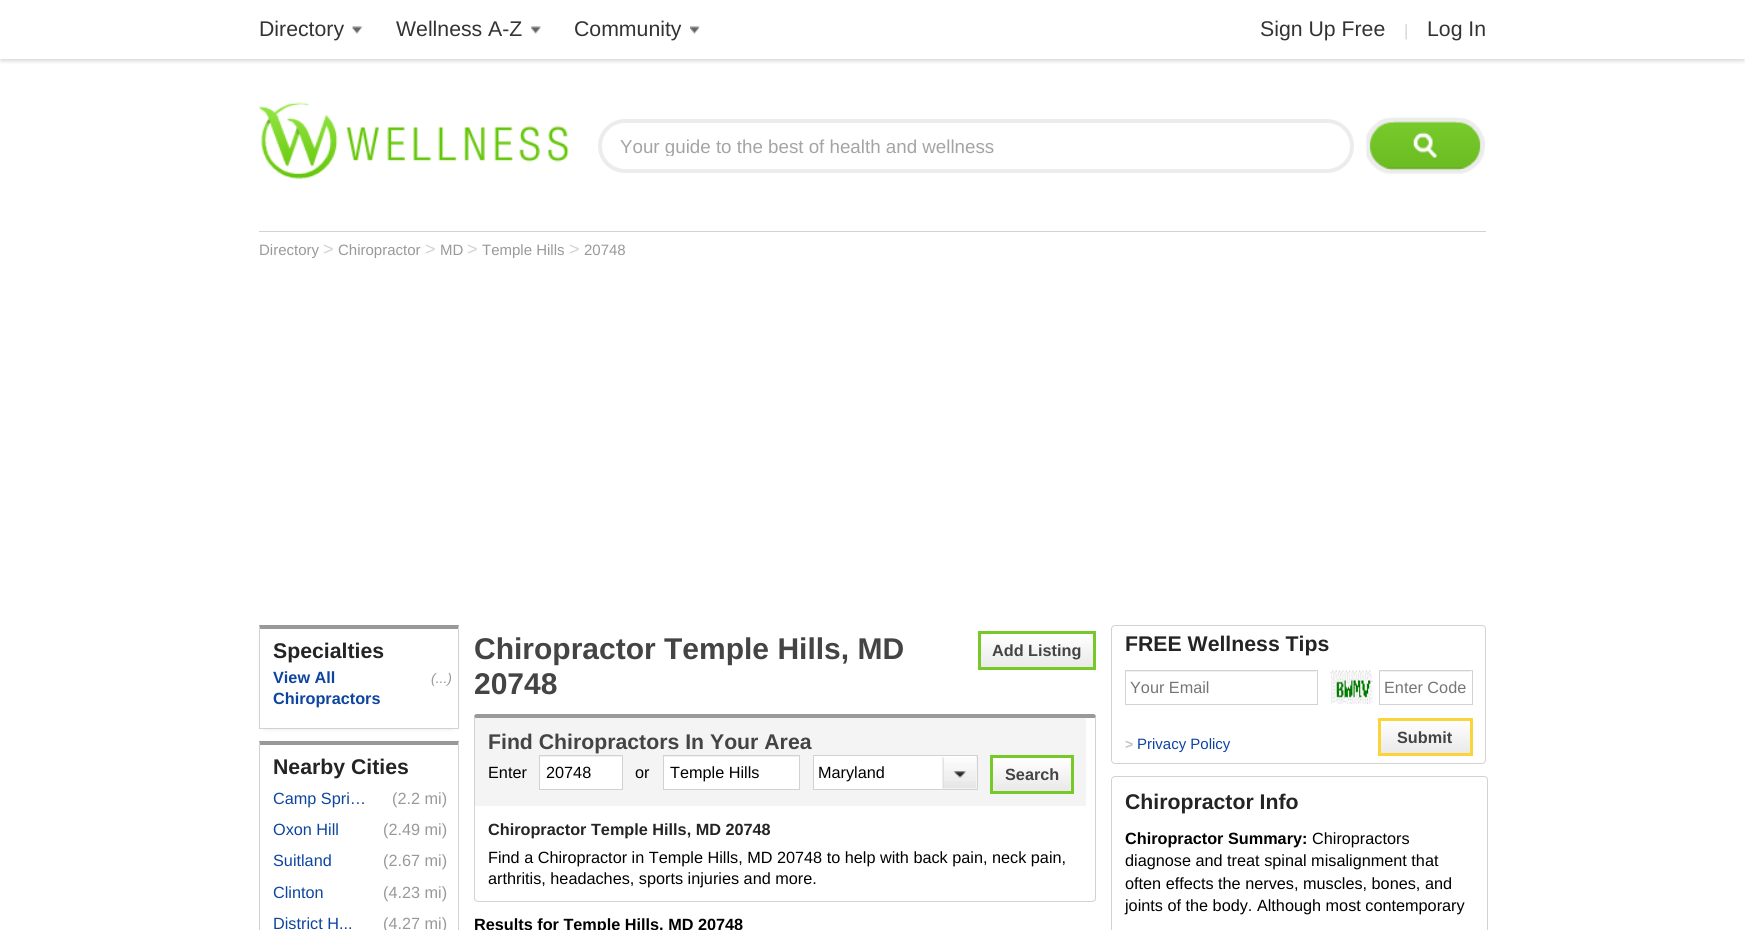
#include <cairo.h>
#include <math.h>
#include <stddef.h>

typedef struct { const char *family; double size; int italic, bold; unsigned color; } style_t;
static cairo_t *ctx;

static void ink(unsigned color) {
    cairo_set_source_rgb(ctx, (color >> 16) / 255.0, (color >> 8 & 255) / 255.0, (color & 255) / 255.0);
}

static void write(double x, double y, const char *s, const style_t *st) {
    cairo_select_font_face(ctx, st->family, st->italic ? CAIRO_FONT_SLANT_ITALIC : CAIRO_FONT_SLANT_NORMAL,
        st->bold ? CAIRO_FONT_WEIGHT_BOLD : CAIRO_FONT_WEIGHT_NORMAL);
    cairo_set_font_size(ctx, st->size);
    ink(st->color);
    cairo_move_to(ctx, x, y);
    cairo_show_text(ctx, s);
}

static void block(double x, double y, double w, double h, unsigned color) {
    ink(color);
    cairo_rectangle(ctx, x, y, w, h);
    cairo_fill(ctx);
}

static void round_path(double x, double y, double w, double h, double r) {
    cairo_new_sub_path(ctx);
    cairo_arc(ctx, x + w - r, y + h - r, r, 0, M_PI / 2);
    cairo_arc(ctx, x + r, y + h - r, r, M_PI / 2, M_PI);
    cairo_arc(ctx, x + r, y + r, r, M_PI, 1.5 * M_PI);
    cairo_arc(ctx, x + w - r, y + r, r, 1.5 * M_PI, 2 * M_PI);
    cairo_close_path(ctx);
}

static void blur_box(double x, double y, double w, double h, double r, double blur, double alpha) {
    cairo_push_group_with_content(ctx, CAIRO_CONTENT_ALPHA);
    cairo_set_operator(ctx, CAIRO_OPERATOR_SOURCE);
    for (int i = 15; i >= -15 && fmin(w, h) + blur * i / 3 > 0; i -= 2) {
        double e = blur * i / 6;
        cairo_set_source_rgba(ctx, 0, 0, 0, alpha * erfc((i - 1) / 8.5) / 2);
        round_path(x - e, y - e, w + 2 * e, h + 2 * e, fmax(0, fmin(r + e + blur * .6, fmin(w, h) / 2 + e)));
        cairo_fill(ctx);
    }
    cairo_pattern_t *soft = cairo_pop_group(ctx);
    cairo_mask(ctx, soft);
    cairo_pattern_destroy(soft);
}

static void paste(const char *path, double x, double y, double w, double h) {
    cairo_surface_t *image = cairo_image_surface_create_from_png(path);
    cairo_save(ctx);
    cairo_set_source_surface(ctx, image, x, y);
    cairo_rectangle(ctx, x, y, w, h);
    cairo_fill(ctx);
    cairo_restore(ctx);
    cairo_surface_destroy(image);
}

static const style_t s1 = {"Liberation Sans", 21.25, 0, 0, 0x333333};
static const style_t s2 = {"Liberation Sans", 16.25, 0, 0, 0xd2d2d2};
static const style_t s3 = {"Liberation Sans", 18.75, 0, 0, 0xa4a4a4};
static const style_t s4 = {"Liberation Sans", 15, 0, 0, 0x999999};
static const style_t s5 = {"Liberation Sans", 18, 0, 0, 0xd2d2d2};
static const style_t s6 = {"Liberation Sans", 21.25, 0, 1, 0x242424};
static const style_t s7 = {"Liberation Sans", 16.25, 0, 1, 0x0d44a0};
static const style_t s8 = {"Liberation Sans", 14, 1, 0, 0x999999};
static const style_t s9 = {"Liberation Sans", 16.25, 0, 0, 0x0d44a0};
static const style_t s10 = {"Liberation Sans", 16.25, 0, 0, 0x999999};
static const style_t s11 = {"Liberation Sans", 30, 0, 1, 0x444444};
static const style_t s12 = {"Liberation Sans", 16.25, 0, 1, 0x444444};
static const style_t s13 = {"Liberation Sans", 21.25, 0, 1, 0x444444};
static const style_t s14 = {"Liberation Sans", 16.25, 0, 0, 0x000000};
static const style_t s15 = {"Liberation Sans", 16.25, 0, 1, 0x242424};
static const style_t s16 = {"Liberation Sans", 16.25, 0, 1, 0x000000};
static const style_t s17 = {"Liberation Sans", 16.25, 0, 0, 0x757575};
static const style_t s18 = {"Liberation Sans", 14, 0, 1, 0xc3c3c3};
static const style_t s19 = {"Liberation Sans", 15, 0, 0, 0x0d44a0};

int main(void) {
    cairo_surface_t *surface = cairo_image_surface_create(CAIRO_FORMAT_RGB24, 1745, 930);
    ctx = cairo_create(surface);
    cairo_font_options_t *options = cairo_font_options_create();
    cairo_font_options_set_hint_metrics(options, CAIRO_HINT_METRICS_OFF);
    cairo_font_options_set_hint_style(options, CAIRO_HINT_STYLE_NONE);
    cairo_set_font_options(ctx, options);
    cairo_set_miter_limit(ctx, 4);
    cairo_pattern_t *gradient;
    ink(0xffffff);
    cairo_paint(ctx);
    ink(0x323232);
    blur_box(1, 5, 1743, 56, 0, 2, 0.2);
    block(0, 2, 1745, 57, 0xffffff);
    paste("pic1.png", 352, 26, 11, 8);
    write(259, 36, "Directory", &s1);
    paste("pic2.png", 531, 26, 11, 8);
    write(396, 36, "Wellness A-Z", &s1);
    paste("pic3.png", 690, 26, 10, 8);
    write(574, 36, "Community", &s1);
    write(1260, 36, "Sign Up Free", &s1);
    write(1404, 36, "|", &s2);
    write(1427, 36, "Log In", &s1);
    paste("pic4.png", 258, 102, 311, 77);
    round_path(600, 121, 752, 50, 25);
    ink(0xececec);
    cairo_set_line_width(ctx, 4);
    cairo_stroke(ctx);
    cairo_save(ctx);
    cairo_rectangle(ctx, 620, 135, 711, 21);
    cairo_clip(ctx);
    write(620, 153, "Your guide to the best of health and wellness", &s3);
    cairo_restore(ctx);
    paste("pic5.png", 1366, 117, 119, 57);
    block(259, 231, 1227, 1, 0xd2d2d2);
    write(259, 255, "Directory", &s4);
    write(323, 255, ">", &s5);
    write(338, 255, "Chiropractor", &s4);
    write(425, 255, ">", &s5);
    write(440, 255, "MD", &s4);
    write(467, 255, ">", &s5);
    write(482, 255, "Temple Hills", &s4);
    write(569, 255, ">", &s5);
    write(584, 255, "20748", &s4);
    cairo_save(ctx);
    cairo_set_fill_rule(ctx, CAIRO_FILL_RULE_EVEN_ODD);
    cairo_new_path(ctx);
    cairo_move_to(ctx, 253, 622);
    cairo_line_to(ctx, 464, 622);
    cairo_line_to(ctx, 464, 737);
    cairo_line_to(ctx, 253, 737);
    cairo_close_path(ctx);
    cairo_move_to(ctx, 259, 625);
    cairo_line_to(ctx, 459, 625);
    cairo_line_to(ctx, 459, 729);
    cairo_line_to(ctx, 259, 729);
    cairo_close_path(ctx);
    cairo_clip(ctx);
    ink(0x808080);
    blur_box(266, 635, 185, 89, 0, 4, 1);
    cairo_restore(ctx);
    cairo_new_path(ctx);
    cairo_move_to(ctx, 259, 625);
    cairo_line_to(ctx, 459, 625);
    cairo_line_to(ctx, 458, 629);
    cairo_line_to(ctx, 260, 629);
    cairo_close_path(ctx);
    cairo_fill(ctx);
    ink(0xd2d2d2);
    cairo_new_path(ctx);
    cairo_move_to(ctx, 459, 625);
    cairo_line_to(ctx, 459, 729);
    cairo_line_to(ctx, 458, 728);
    cairo_line_to(ctx, 458, 629);
    cairo_close_path(ctx);
    cairo_fill(ctx);
    block(259, 728, 200, 1, 0xd2d2d2);
    cairo_new_path(ctx);
    cairo_move_to(ctx, 259, 729);
    cairo_line_to(ctx, 259, 625);
    cairo_line_to(ctx, 260, 629);
    cairo_line_to(ctx, 260, 728);
    cairo_close_path(ctx);
    cairo_fill(ctx);
    write(273, 658, "Specialties", &s6);
    write(273, 683, "View All", &s7);
    write(273, 704, "Chiropractors", &s7);
    write(431, 683, "(...)", &s8);
    cairo_new_path(ctx);
    cairo_move_to(ctx, 259, 741);
    cairo_line_to(ctx, 459, 741);
    cairo_line_to(ctx, 458, 745);
    cairo_line_to(ctx, 260, 745);
    cairo_close_path(ctx);
    cairo_fill(ctx);
    ink(0xd2d2d2);
    cairo_new_path(ctx);
    cairo_move_to(ctx, 459, 741);
    cairo_line_to(ctx, 459, 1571);
    cairo_line_to(ctx, 458, 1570);
    cairo_line_to(ctx, 458, 745);
    cairo_close_path(ctx);
    cairo_fill(ctx);
    cairo_new_path(ctx);
    cairo_move_to(ctx, 259, 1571);
    cairo_line_to(ctx, 259, 741);
    cairo_line_to(ctx, 260, 745);
    cairo_line_to(ctx, 260, 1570);
    cairo_close_path(ctx);
    cairo_fill(ctx);
    write(273, 774, "Nearby Cities", &s6);
    write(273, 804, "Camp Spri…", &s9);
    write(392, 804, "(2.2 mi)", &s10);
    write(273, 835, "Oxon Hill", &s9);
    write(383, 835, "(2.49 mi)", &s10);
    write(273, 866, "Suitland", &s9);
    write(383, 866, "(2.67 mi)", &s10);
    write(273, 898, "Clinton", &s9);
    write(383, 898, "(4.23 mi)", &s10);
    write(273, 929, "District H...", &s9);
    write(383, 929, "(4.27 mi)", &s10);
    write(474, 659, "Chiropractor Temple Hills, MD", &s11);
    write(474, 694, "20748", &s11);
    gradient = cairo_pattern_create_linear(1037, 634, 1037, 668);
    cairo_pattern_add_color_stop_rgba(gradient, 0, 1, 1, 1, 1);
    cairo_pattern_add_color_stop_rgba(gradient, 1, 0.914, 0.914, 0.914, 1);
    cairo_set_source(ctx, gradient);
    cairo_pattern_destroy(gradient);
    cairo_rectangle(ctx, 981, 638, 112, 29);
    cairo_fill(ctx);
    cairo_rectangle(ctx, 979.5, 632.5, 115, 36);
    ink(0x77c929);
    cairo_set_line_width(ctx, 3);
    cairo_stroke(ctx);
    write(992, 656, "Add Listing", &s12);
    ink(0x999999);
    cairo_new_path(ctx);
    cairo_move_to(ctx, 478, 714);
    cairo_curve_to(ctx, 476, 714, 475, 714, 474, 716);
    cairo_line_to(ctx, 475, 718);
    cairo_line_to(ctx, 1095, 718);
    cairo_line_to(ctx, 1096, 716);
    cairo_curve_to(ctx, 1095, 714, 1094, 714, 1092, 714);
    cairo_close_path(ctx);
    cairo_fill(ctx);
    ink(0xd2d2d2);
    cairo_new_path(ctx);
    cairo_move_to(ctx, 1096, 716);
    cairo_line_to(ctx, 1096, 899);
    cairo_line_to(ctx, 1095, 901);
    cairo_line_to(ctx, 1094, 900);
    cairo_line_to(ctx, 1095, 899);
    cairo_line_to(ctx, 1095, 718);
    cairo_close_path(ctx);
    cairo_fill(ctx);
    cairo_new_path(ctx);
    cairo_move_to(ctx, 1095, 901);
    cairo_line_to(ctx, 1092, 902);
    cairo_line_to(ctx, 478, 902);
    cairo_line_to(ctx, 475, 901);
    cairo_line_to(ctx, 476, 900);
    cairo_line_to(ctx, 478, 901);
    cairo_line_to(ctx, 1092, 901);
    cairo_line_to(ctx, 1094, 900);
    cairo_close_path(ctx);
    cairo_fill(ctx);
    cairo_new_path(ctx);
    cairo_move_to(ctx, 474, 716);
    cairo_line_to(ctx, 474, 899);
    cairo_line_to(ctx, 475, 901);
    cairo_line_to(ctx, 476, 900);
    cairo_line_to(ctx, 475, 899);
    cairo_line_to(ctx, 475, 718);
    cairo_close_path(ctx);
    cairo_fill(ctx);
    block(475, 718, 611, 88, 0xf4f4f4);
    write(488, 749, "Find Chiropractors In Your Area", &s13);
    write(488, 778, "Enter", &s14);
    block(540, 756, 82, 33, 0xffffff);
    block(540, 756, 81, 1, 0xf0f0f0);
    cairo_rectangle(ctx, 539.5, 755.5, 83, 34);
    ink(0xd2d2d2);
    cairo_set_line_width(ctx, 1);
    cairo_stroke(ctx);
    write(546, 778, "20748", &s14);
    write(635, 778, "or", &s14);
    block(664, 757, 135, 32, 0xffffff);
    block(664, 756, 135, 1, 0xf0f0f0);
    cairo_rectangle(ctx, 663.5, 755.5, 136, 34);
    ink(0xd2d2d2);
    cairo_stroke(ctx);
    write(670, 778, "Temple Hills", &s14);
    cairo_rectangle(ctx, 813.5, 755.5, 164, 34);
    ink(0xd2d2d2);
    cairo_stroke(ctx);
    block(814, 756, 162, 33, 0xffffff);
    paste("pic6.png", 942, 757, 34, 32);
    write(818, 778, "Maryland", &s14);
    gradient = cairo_pattern_create_linear(1032, 758, 1032, 791);
    cairo_pattern_add_color_stop_rgba(gradient, 0, 1, 1, 1, 1);
    cairo_pattern_add_color_stop_rgba(gradient, 1, 0.914, 0.914, 0.914, 1);
    cairo_set_source(ctx, gradient);
    cairo_pattern_destroy(gradient);
    cairo_rectangle(ctx, 993, 758, 78, 33);
    cairo_fill(ctx);
    cairo_rectangle(ctx, 991.5, 756.5, 81, 36);
    ink(0x77c929);
    cairo_set_line_width(ctx, 3);
    cairo_stroke(ctx);
    write(1005, 780, "Search", &s12);
    write(488, 835, "Chiropractor Temple Hills, MD 20748", &s15);
    write(488, 863, "Find a Chiropractor in Temple Hills, MD 20748 to help with back pain, neck pain,", &s14);
    write(488, 884, "arthritis, headaches, sports injuries and more.", &s14);
    write(474, 930, "Results for Temple Hills, MD 20748", &s16);
    round_path(1111.5, 625.5, 374, 138, 3.5);
    ink(0xd2d2d2);
    cairo_set_line_width(ctx, 1);
    cairo_stroke(ctx);
    write(1125, 651, "FREE Wellness Tips", &s6);
    block(1126, 671, 190, 1, 0xf0f0f0);
    cairo_rectangle(ctx, 1125.5, 670.5, 192, 34);
    ink(0xd2d2d2);
    cairo_stroke(ctx);
    write(1130, 693, "Your Email", &s17);
    paste("pic7.png", 1330, 670, 43, 34);
    block(1380, 671, 91, 1, 0xf0f0f0);
    cairo_rectangle(ctx, 1379.5, 670.5, 93, 34);
    ink(0xd2d2d2);
    cairo_stroke(ctx);
    write(1384, 693, "Enter Code", &s17);
    write(1125, 749, ">", &s18);
    write(1137, 749, "Privacy Policy", &s19);
    gradient = cairo_pattern_create_linear(1425, 720, 1425, 754);
    cairo_pattern_add_color_stop_rgba(gradient, 0, 1, 1, 1, 1);
    cairo_pattern_add_color_stop_rgba(gradient, 1, 0.914, 0.914, 0.914, 1);
    cairo_set_source(ctx, gradient);
    cairo_pattern_destroy(gradient);
    cairo_rectangle(ctx, 1381, 724, 89, 29);
    cairo_fill(ctx);
    cairo_rectangle(ctx, 1379.5, 719.5, 92, 35);
    ink(0xfbd439);
    cairo_set_line_width(ctx, 3);
    cairo_stroke(ctx);
    write(1397, 743, "Submit", &s12);
    round_path(1111.5, 776.5, 376, 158, 3.5);
    ink(0xd2d2d2);
    cairo_set_line_width(ctx, 1);
    cairo_stroke(ctx);
    write(1125, 809, "Chiropractor Info", &s6);
    write(1125, 844, "Chiropractor Summary:", &s16);
    write(1312, 844, "Chiropractors", &s14);
    write(1125, 866, "diagnose and treat spinal misalignment that", &s14);
    write(1125, 889, "often effects the nerves, muscles, bones, and", &s14);
    write(1125, 911, "joints of the body. Although most contemporary", &s14);
    cairo_surface_write_to_png(surface, "screenshot.png");
    cairo_font_options_destroy(options);
    cairo_destroy(ctx);
    cairo_surface_destroy(surface);
    return 0;
}
